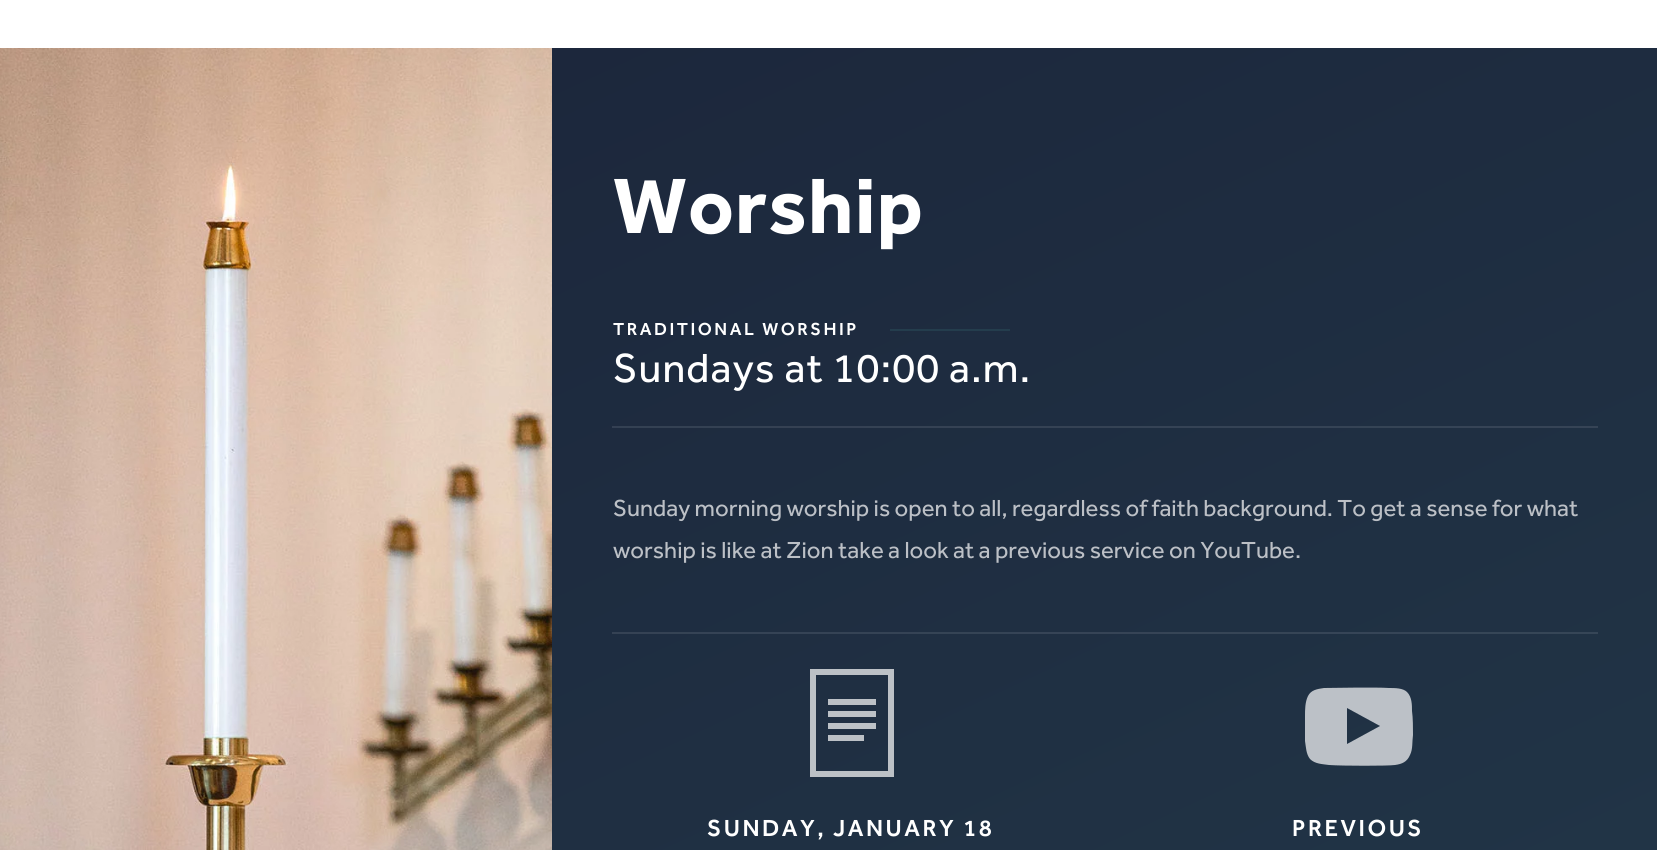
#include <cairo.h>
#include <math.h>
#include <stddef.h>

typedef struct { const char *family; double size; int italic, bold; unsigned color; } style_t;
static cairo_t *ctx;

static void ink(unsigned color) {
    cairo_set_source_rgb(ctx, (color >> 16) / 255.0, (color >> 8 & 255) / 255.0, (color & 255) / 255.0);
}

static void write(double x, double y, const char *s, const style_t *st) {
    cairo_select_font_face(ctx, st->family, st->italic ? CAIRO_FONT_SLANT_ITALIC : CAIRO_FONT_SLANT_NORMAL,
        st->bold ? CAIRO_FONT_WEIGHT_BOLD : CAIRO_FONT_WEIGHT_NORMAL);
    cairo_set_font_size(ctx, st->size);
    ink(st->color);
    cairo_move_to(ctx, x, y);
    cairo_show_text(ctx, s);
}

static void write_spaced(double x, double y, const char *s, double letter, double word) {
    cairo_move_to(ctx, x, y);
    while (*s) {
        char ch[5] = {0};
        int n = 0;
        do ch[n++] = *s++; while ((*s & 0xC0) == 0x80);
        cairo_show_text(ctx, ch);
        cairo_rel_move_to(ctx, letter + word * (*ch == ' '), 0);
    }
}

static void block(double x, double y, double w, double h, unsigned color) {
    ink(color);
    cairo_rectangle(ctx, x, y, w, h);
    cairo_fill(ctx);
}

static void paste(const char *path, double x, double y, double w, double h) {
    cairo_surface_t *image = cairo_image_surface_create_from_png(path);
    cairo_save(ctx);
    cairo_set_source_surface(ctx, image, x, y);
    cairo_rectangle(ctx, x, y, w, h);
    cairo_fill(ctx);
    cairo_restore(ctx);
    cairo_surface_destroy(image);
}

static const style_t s1 = {"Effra", 24, 0, 0, 0xbcc0c6};

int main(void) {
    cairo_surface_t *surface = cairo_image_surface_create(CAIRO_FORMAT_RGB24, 1657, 850);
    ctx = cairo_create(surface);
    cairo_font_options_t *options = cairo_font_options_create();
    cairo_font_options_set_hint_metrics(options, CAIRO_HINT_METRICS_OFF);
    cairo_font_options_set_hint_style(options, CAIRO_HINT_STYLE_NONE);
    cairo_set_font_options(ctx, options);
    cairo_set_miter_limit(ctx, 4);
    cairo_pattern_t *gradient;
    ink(0xffffff);
    cairo_paint(ctx);
    paste("pic1.png", 0, 48, 552, 802);
    gradient = cairo_pattern_create_linear(682, -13, 1527, 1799);
    cairo_pattern_add_color_stop_rgba(gradient, 0, 0.11, 0.153, 0.235, 1);
    cairo_pattern_add_color_stop_rgba(gradient, 1, 0.141, 0.239, 0.302, 1);
    cairo_set_source(ctx, gradient);
    cairo_pattern_destroy(gradient);
    cairo_rectangle(ctx, 552, 48, 1105, 802);
    cairo_fill(ctx);
    gradient = cairo_pattern_create_linear(682, -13, 1527, 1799);
    cairo_pattern_add_color_stop_rgba(gradient, 0, 0.2, 0.239, 0.314, 1);
    cairo_pattern_add_color_stop_rgba(gradient, 1, 0.227, 0.314, 0.373, 1);
    cairo_set_source(ctx, gradient);
    cairo_pattern_destroy(gradient);
    cairo_rectangle(ctx, 612, 632, 986, 2);
    cairo_fill(ctx);
    cairo_rectangle(ctx, 612, 426, 986, 2);
    cairo_fill(ctx);
    cairo_select_font_face(ctx, "Effra", CAIRO_FONT_SLANT_NORMAL, CAIRO_FONT_WEIGHT_BOLD);
    cairo_set_font_size(ctx, 81);
    ink(0xffffff);
    write_spaced(613, 233, "Worship", 1.1, 0);
    cairo_select_font_face(ctx, "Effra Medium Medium", CAIRO_FONT_SLANT_NORMAL, CAIRO_FONT_WEIGHT_NORMAL);
    cairo_set_font_size(ctx, 18);
    write_spaced(613, 335, "TRADITIONAL WORSHIP", 2.5, 0);
    block(890, 329, 120, 2, 0x243d4d);
    cairo_select_font_face(ctx, "Effra", CAIRO_FONT_SLANT_NORMAL, CAIRO_FONT_WEIGHT_NORMAL);
    cairo_set_font_size(ctx, 42);
    ink(0xffffff);
    write_spaced(613, 382, "Sundays at 10:00 a.m.", 1.1, 0);
    write(613, 516, "Sunday morning worship is open to all, regardless of faith background. To get a sense for what", &s1);
    write(613, 558, "worship is like at Zion take a look at a previous service on YouTube.", &s1);
    cairo_rectangle(ctx, 813, 672, 78, 102);
    ink(0xbcc1c6);
    cairo_set_line_width(ctx, 6);
    cairo_stroke(ctx);
    block(828, 699, 48, 6, 0xbcc1c6);
    block(828, 711, 48, 6, 0xbcc1c6);
    block(828, 723, 48, 6, 0xbcc1c6);
    block(828, 735, 36, 6, 0xbcc1c6);
    cairo_select_font_face(ctx, "Effra Medium Medium", CAIRO_FONT_SLANT_NORMAL, CAIRO_FONT_WEIGHT_NORMAL);
    ink(0xffffff);
    write_spaced(707, 836, "SUNDAY, JANUARY 18", 2.5, 0);
    ink(0xbcc1c7);
    cairo_new_path(ctx);
    cairo_move_to(ctx, 1389, 688);
    cairo_curve_to(ctx, 1395, 688, 1403, 688, 1407, 692);
    cairo_curve_to(ctx, 1412, 697, 1412, 705, 1412, 711);
    cairo_curve_to(ctx, 1413, 718, 1413, 728, 1413, 735);
    cairo_curve_to(ctx, 1412, 742, 1413, 749, 1410, 755);
    cairo_curve_to(ctx, 1407, 762, 1402, 764, 1395, 765);
    cairo_curve_to(ctx, 1388, 766, 1343, 766, 1329, 765);
    cairo_curve_to(ctx, 1322, 764, 1315, 764, 1310, 759);
    cairo_curve_to(ctx, 1306, 754, 1306, 747, 1305, 741);
    cairo_line_to(ctx, 1305, 716);
    cairo_curve_to(ctx, 1305, 710, 1305, 702, 1308, 696);
    cairo_curve_to(ctx, 1311, 690, 1317, 689, 1324, 688);
    cairo_curve_to(ctx, 1331, 688, 1375, 687, 1389, 688);
    cairo_close_path(ctx);
    cairo_move_to(ctx, 1347, 708);
    cairo_line_to(ctx, 1347, 744);
    cairo_line_to(ctx, 1380, 726);
    cairo_close_path(ctx);
    cairo_fill(ctx);
    ink(0xffffff);
    write_spaced(1292, 836, "PREVIOUS", 2.5, 0);
    cairo_surface_write_to_png(surface, "screenshot.png");
    cairo_font_options_destroy(options);
    cairo_destroy(ctx);
    cairo_surface_destroy(surface);
    return 0;
}
